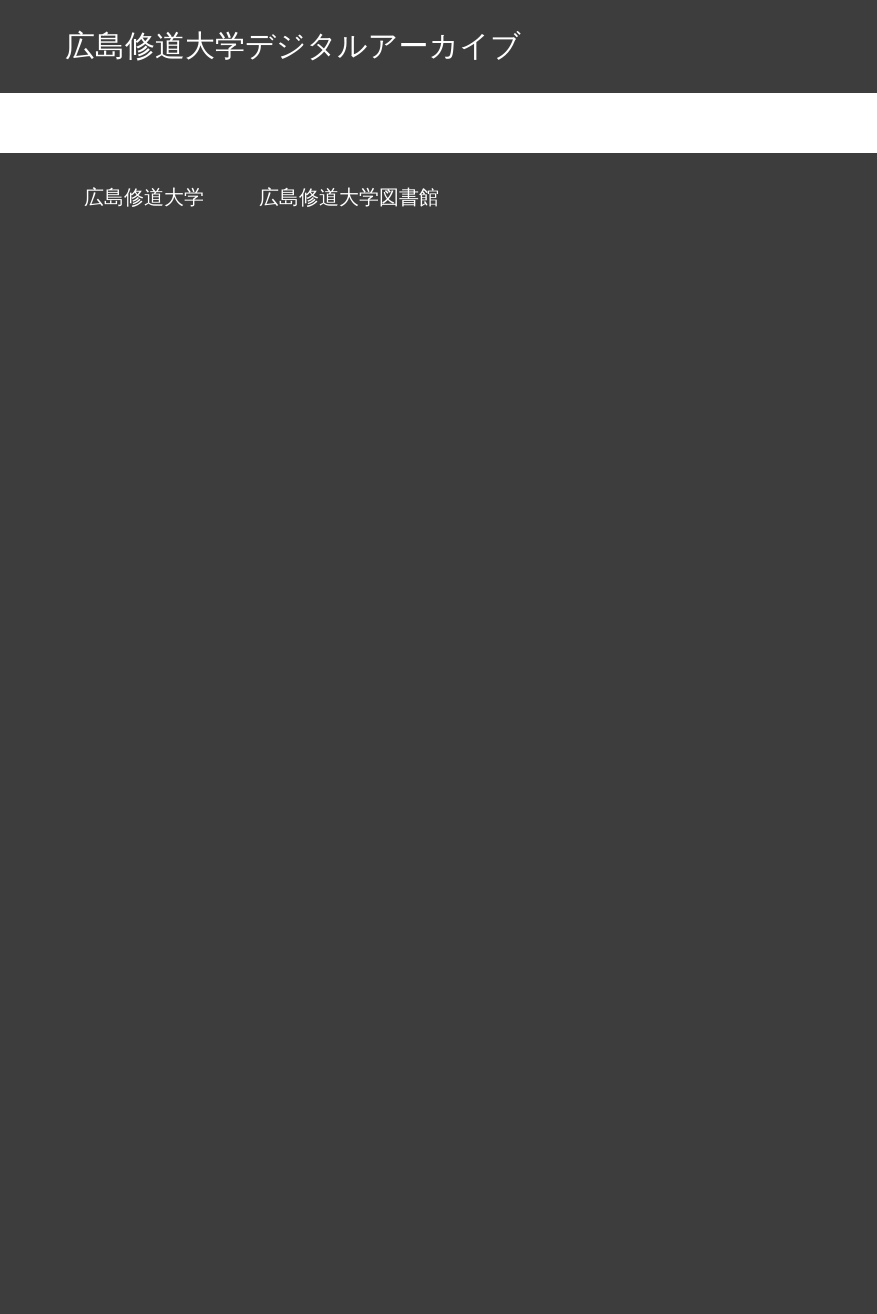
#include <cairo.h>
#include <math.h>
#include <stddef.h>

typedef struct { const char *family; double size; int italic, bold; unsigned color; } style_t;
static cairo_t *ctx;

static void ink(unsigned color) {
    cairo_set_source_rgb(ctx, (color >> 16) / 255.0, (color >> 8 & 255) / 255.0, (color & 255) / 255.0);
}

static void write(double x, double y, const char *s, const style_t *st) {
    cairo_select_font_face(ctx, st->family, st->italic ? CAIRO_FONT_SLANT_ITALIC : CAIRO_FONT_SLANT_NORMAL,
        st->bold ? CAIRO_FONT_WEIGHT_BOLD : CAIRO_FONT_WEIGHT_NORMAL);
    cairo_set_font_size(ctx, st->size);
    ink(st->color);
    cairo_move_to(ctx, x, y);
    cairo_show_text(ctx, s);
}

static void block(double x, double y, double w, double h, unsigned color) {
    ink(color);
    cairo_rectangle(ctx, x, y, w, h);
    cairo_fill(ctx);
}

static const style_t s1 = {"WenQuanYi Zen Hei Medium", 30, 0, 0, 0xffffff};
static const style_t s2 = {"WenQuanYi Zen Hei Medium", 20, 0, 0, 0xffffff};

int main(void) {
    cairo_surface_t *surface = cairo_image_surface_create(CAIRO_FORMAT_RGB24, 877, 1314);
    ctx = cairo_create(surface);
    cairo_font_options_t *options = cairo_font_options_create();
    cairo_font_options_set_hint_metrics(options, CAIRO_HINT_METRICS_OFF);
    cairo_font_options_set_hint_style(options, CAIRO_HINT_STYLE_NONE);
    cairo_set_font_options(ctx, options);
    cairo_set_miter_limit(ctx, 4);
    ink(0x3d3d3d);
    cairo_paint(ctx);
    write(65, 56, "広島修道大学デジタルアーカイブ", &s1);
    block(0, 93, 877, 60, 0xffffff);
    write(84, 204, "広島修道大学", &s2);
    write(259, 204, "広島修道大学図書館", &s2);
    cairo_surface_write_to_png(surface, "screenshot.png");
    cairo_font_options_destroy(options);
    cairo_destroy(ctx);
    cairo_surface_destroy(surface);
    return 0;
}
